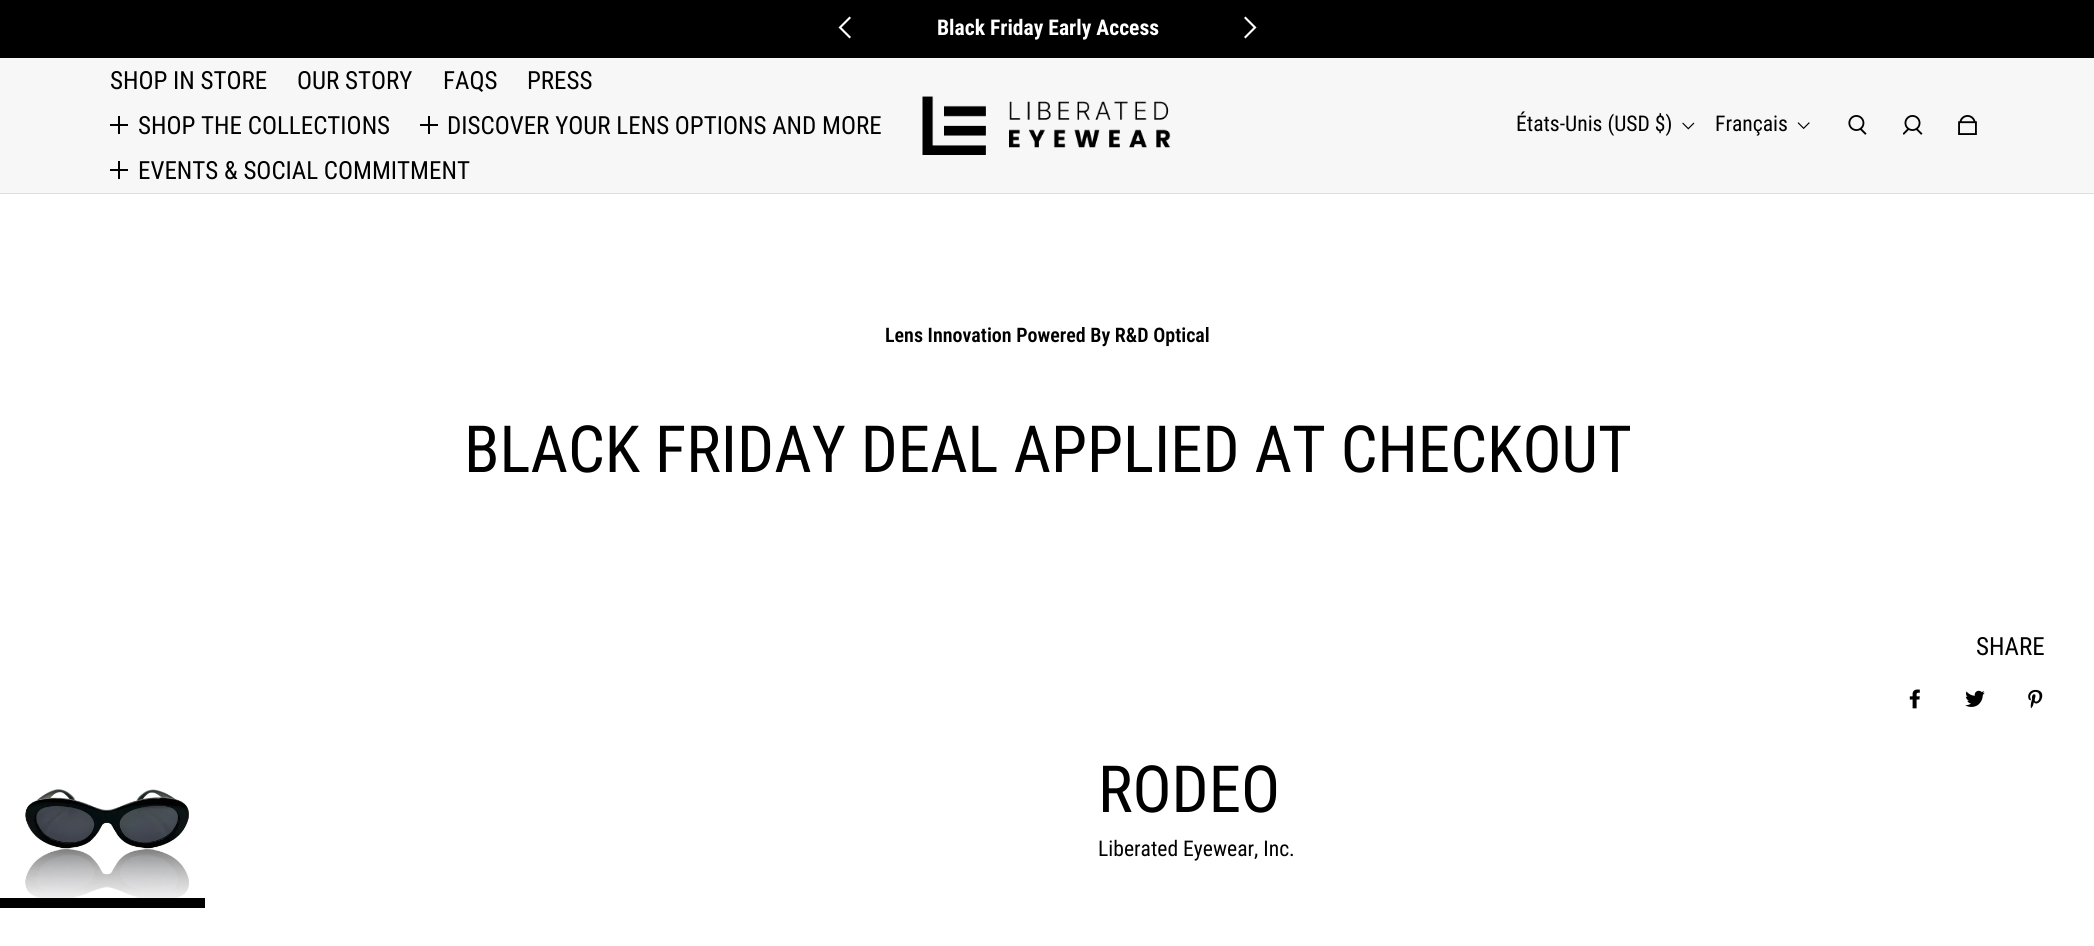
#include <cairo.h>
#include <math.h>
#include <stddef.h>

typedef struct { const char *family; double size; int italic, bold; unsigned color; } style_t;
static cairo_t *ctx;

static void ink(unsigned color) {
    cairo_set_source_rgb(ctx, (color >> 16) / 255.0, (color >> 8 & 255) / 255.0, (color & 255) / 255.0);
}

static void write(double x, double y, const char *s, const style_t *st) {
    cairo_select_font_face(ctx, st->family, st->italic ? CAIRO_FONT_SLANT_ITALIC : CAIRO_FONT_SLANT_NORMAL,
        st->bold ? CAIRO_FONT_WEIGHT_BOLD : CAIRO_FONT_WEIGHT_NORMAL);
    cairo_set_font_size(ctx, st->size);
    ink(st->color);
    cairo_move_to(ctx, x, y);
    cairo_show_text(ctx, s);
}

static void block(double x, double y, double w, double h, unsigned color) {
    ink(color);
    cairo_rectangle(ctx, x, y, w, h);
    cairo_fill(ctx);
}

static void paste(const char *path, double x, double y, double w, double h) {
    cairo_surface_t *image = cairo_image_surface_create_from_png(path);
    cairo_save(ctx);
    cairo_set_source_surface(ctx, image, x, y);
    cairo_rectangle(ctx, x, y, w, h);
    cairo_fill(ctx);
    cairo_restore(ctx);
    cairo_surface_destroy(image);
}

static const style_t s1 = {"Roboto Condensed", 21.6, 0, 1, 0xffffff};
static const style_t s2 = {"Roboto Condensed", 25, 0, 0, 0x000000};
static const style_t s3 = {"Roboto Condensed", 21.6, 0, 0, 0x000000};
static const style_t s4 = {"Roboto Condensed SemiBold", 20, 0, 0, 0x000000};
static const style_t s5 = {"Roboto Condensed", 65, 0, 0, 0x000000};

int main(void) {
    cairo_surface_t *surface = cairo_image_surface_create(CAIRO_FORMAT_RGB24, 2094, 946);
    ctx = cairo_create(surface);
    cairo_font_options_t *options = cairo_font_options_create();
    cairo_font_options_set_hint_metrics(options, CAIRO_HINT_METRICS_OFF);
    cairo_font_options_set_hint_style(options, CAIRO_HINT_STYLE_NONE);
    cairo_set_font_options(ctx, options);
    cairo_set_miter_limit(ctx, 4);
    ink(0xffffff);
    cairo_paint(ctx);
    block(0, 0, 2094, 58, 0x000000);
    ink(0xffffff);
    cairo_set_fill_rule(ctx, CAIRO_FILL_RULE_EVEN_ODD);
    cairo_new_path(ctx);
    cairo_move_to(ctx, 841.5, 27.5);
    cairo_line_to(ctx, 851, 18);
    cairo_line_to(ctx, 849.5, 16.5);
    cairo_line_to(ctx, 838.5, 27.5);
    cairo_line_to(ctx, 849.5, 38.5);
    cairo_line_to(ctx, 851, 37);
    cairo_close_path(ctx);
    cairo_fill(ctx);
    write(937, 35, "Black Friday Early Access", &s1);
    cairo_new_path(ctx);
    cairo_move_to(ctx, 1253.5, 27.5);
    cairo_line_to(ctx, 1244, 37);
    cairo_line_to(ctx, 1245.5, 38.5);
    cairo_line_to(ctx, 1256.5, 27.5);
    cairo_line_to(ctx, 1245.5, 16.5);
    cairo_line_to(ctx, 1244, 18);
    cairo_close_path(ctx);
    cairo_fill(ctx);
    block(0, 58, 2094, 135, 0xf7f7f7);
    block(0, 193, 2094, 1, 0xdedede);
    write(110, 89, "SHOP IN STORE", &s2);
    write(297, 89, "OUR STORY", &s2);
    write(443, 89, "FAQS", &s2);
    write(527, 89, "PRESS", &s2);
    block(110, 124, 18, 2, 0x000000);
    block(118, 116, 2, 18, 0x000000);
    write(138, 134, "SHOP THE COLLECTIONS", &s2);
    block(420, 124, 18, 2, 0x000000);
    block(428, 116, 2, 18, 0x000000);
    write(447, 134, "DISCOVER YOUR LENS OPTIONS AND MORE", &s2);
    block(110, 169, 18, 2, 0x000000);
    block(118, 161, 2, 18, 0x000000);
    write(138, 179, "EVENTS & SOCIAL COMMITMENT", &s2);
    paste("pic1.png", 922, 96, 249, 59);
    write(1516, 131, "États-Unis (USD $)", &s3);
    paste("pic2.png", 1682, 122, 13, 8);
    write(1715, 131, "Français", &s3);
    paste("pic3.png", 1797, 122, 13, 7);
    paste("pic4.png", 1848, 115, 19, 20);
    paste("pic5.png", 1903, 115, 20, 20);
    paste("pic6.png", 1958, 115, 19, 20);
    write(885, 342, "Lens Innovation Powered By R&D Optical", &s4);
    write(464, 472, "BLACK FRIDAY DEAL APPLIED AT CHECKOUT", &s5);
    paste("pic7.png", 25, 789, 164, 109);
    block(0, 898, 205, 10, 0x000000);
    write(1976, 655, "SHARE", &s2);
    paste("pic8.png", 1909, 689, 11, 20);
    paste("pic9.png", 1965, 690, 20, 17);
    paste("pic10.png", 2028, 689, 15, 20);
    write(1098, 812, "RODEO", &s5);
    write(1098, 856, "Liberated Eyewear, Inc.", &s3);
    cairo_surface_write_to_png(surface, "screenshot.png");
    cairo_font_options_destroy(options);
    cairo_destroy(ctx);
    cairo_surface_destroy(surface);
    return 0;
}
